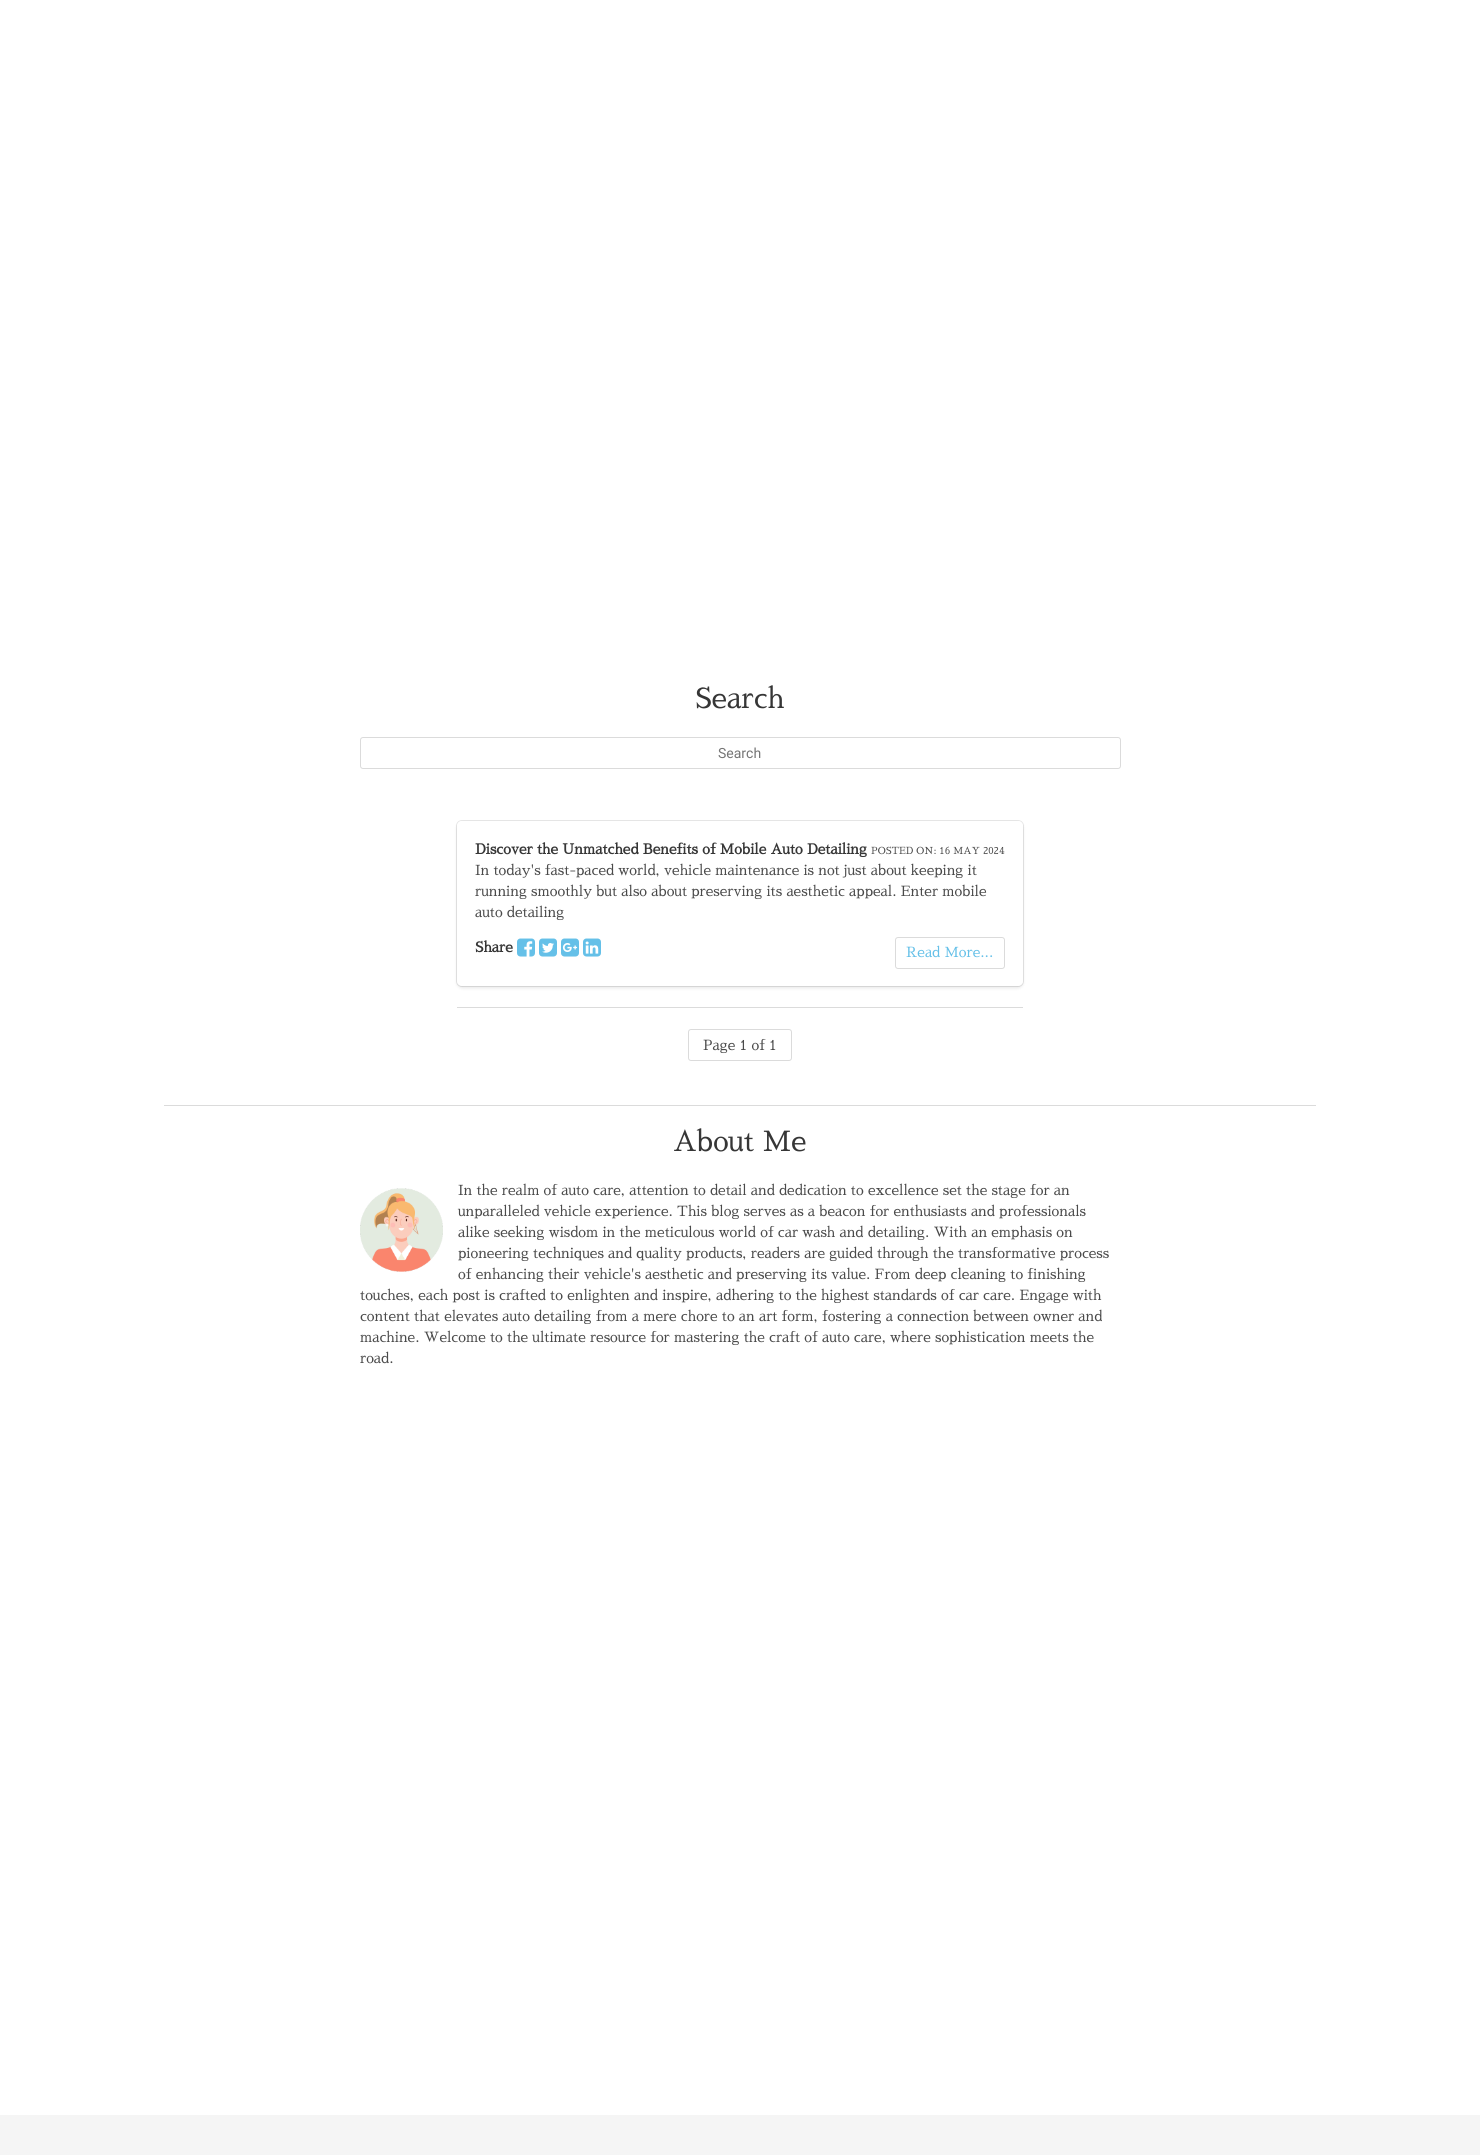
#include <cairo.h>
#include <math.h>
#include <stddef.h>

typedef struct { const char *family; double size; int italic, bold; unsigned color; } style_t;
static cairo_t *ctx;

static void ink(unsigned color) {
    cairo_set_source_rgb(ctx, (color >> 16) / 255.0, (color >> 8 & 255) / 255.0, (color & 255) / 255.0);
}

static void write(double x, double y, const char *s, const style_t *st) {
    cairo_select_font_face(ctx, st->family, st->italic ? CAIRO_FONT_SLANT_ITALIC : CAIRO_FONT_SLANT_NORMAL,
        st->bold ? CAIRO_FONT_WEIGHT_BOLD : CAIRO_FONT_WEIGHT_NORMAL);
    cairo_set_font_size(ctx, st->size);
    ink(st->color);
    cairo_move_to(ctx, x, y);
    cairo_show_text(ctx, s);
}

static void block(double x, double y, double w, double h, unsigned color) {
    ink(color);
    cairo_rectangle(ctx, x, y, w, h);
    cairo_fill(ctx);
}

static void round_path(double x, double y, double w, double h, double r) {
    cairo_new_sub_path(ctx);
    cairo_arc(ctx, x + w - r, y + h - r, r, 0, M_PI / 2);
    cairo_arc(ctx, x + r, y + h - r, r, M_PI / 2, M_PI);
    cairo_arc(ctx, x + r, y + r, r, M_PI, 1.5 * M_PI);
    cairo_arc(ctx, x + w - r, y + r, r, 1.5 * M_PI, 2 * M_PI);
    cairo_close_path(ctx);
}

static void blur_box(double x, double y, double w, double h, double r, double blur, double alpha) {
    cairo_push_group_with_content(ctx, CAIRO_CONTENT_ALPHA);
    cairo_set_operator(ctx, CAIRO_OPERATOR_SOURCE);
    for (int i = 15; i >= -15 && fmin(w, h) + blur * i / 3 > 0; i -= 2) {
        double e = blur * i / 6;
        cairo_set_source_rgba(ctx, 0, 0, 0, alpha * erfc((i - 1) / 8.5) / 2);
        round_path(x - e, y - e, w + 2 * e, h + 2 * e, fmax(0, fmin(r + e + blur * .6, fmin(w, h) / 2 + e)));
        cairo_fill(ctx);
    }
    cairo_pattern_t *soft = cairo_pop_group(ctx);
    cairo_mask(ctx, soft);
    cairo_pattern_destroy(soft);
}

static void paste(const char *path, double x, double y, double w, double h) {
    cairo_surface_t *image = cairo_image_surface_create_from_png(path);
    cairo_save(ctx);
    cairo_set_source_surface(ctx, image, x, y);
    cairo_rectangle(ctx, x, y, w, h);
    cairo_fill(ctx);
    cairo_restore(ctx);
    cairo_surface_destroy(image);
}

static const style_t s1 = {"Sawarabi Mincho", 28, 0, 0, 0x363636};
static const style_t s2 = {"Roboto", 14, 0, 0, 0x757575};
static const style_t s3 = {"Sawarabi Mincho", 14, 0, 1, 0x363636};
static const style_t s4 = {"Sawarabi Mincho", 9.75, 0, 0, 0x4a4a4a};
static const style_t s5 = {"Sawarabi Mincho", 14, 0, 0, 0x4a4a4a};
static const style_t s6 = {"Sawarabi Mincho", 14, 0, 0, 0x65c0e8};

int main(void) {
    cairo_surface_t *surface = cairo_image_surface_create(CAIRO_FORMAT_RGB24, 1480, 2155);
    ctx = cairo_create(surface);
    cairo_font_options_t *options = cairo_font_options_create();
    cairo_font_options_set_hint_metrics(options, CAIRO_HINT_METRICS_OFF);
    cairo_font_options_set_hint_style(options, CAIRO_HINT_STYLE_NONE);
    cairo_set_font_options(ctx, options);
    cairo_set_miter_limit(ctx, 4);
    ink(0xffffff);
    cairo_paint(ctx);
    write(695, 708, "Search", &s1);
    round_path(360.5, 737.5, 760, 31, 2.5);
    ink(0xdbdbdb);
    cairo_set_line_width(ctx, 1);
    cairo_stroke(ctx);
    write(718, 758, "Search", &s2);
    round_path(456.5, 820.5, 567, 166, 5.5);
    ink(0xe7e7e7);
    cairo_stroke(ctx);
    ink(0x0a0a0a);
    blur_box(457, 823, 566, 165, 5, 1.5, 0.1);
    ink(0xffffff);
    round_path(457, 821, 566, 165, 5);
    cairo_fill(ctx);
    write(475, 854, "Discover the Unmatched Benefits of Mobile Auto Detailing", &s3);
    write(871, 854, "POSTED ON: 16 MAY 2024", &s4);
    write(475, 875, "In today's fast-paced world, vehicle maintenance is not just about keeping it", &s5);
    write(475, 896, "running smoothly but also about preserving its aesthetic appeal. Enter mobile", &s5);
    write(475, 917, "auto detailing", &s5);
    round_path(895.5, 937.5, 109, 31, 2.5);
    ink(0xdbdbdb);
    cairo_stroke(ctx);
    write(906, 957, "Read More...", &s6);
    write(475, 952, "Share", &s3);
    paste("pic1.png", 517, 938, 18, 19);
    paste("pic2.png", 539, 938, 18, 19);
    paste("pic3.png", 561, 938, 18, 19);
    paste("pic4.png", 583, 938, 18, 19);
    block(457, 1007, 566, 1, 0xdbdbdb);
    round_path(688.5, 1029.5, 103, 31, 2.5);
    cairo_stroke(ctx);
    write(703, 1050, "Page 1 of 1", &s5);
    block(164, 1105, 1152, 1, 0xdbdbdb);
    write(673, 1151, "About Me", &s1);
    paste("pic5.png", 360, 1188, 83, 84);
    write(458, 1195, "In the realm of auto care, attention to detail and dedication to excellence set the stage for an", &s5);
    write(458, 1216, "unparalleled vehicle experience. This blog serves as a beacon for enthusiasts and professionals", &s5);
    write(458, 1237, "alike seeking wisdom in the meticulous world of car wash and detailing. With an emphasis on", &s5);
    write(458, 1258, "pioneering techniques and quality products, readers are guided through the transformative process", &s5);
    write(458, 1279, "of enhancing their vehicle's aesthetic and preserving its value. From deep cleaning to finishing", &s5);
    write(360, 1300, "touches, each post is crafted to enlighten and inspire, adhering to the highest standards of car care. Engage with", &s5);
    write(360, 1321, "content that elevates auto detailing from a mere chore to an art form, fostering a connection between owner and", &s5);
    write(360, 1342, "machine. Welcome to the ultimate resource for mastering the craft of auto care, where sophistication meets the", &s5);
    write(360, 1363, "road.", &s5);
    block(0, 2115, 1480, 40, 0xf5f5f5);
    cairo_surface_write_to_png(surface, "screenshot.png");
    cairo_font_options_destroy(options);
    cairo_destroy(ctx);
    cairo_surface_destroy(surface);
    return 0;
}
